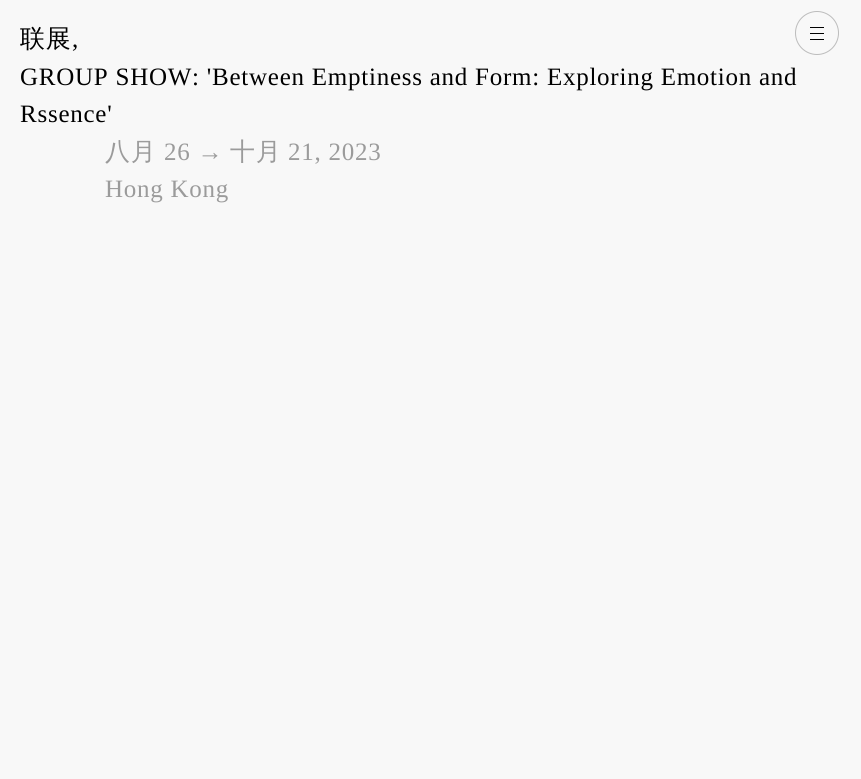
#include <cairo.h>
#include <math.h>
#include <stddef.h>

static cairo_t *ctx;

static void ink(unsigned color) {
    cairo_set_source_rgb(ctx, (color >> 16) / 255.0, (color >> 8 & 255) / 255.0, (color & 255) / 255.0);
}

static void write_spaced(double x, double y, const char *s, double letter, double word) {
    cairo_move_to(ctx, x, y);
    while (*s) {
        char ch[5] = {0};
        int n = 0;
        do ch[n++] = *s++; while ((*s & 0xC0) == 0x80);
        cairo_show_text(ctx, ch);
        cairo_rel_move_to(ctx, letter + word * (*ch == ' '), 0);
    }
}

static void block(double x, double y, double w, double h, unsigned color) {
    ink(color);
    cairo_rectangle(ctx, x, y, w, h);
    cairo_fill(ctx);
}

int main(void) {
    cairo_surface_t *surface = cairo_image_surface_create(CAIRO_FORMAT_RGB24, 861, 779);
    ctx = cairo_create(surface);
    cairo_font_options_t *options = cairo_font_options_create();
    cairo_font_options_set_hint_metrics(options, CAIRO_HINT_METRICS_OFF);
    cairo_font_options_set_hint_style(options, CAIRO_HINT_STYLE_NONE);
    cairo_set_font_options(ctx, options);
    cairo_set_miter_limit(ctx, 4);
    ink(0xf8f8f8);
    cairo_paint(ctx);
    cairo_select_font_face(ctx, "WenQuanYi Zen Hei Medium", CAIRO_FONT_SLANT_NORMAL, CAIRO_FONT_WEIGHT_NORMAL);
    cairo_set_font_size(ctx, 25);
    ink(0x000000);
    write_spaced(20, 47, "联展", 0.75, 0);
    cairo_select_font_face(ctx, "Liberation Serif", CAIRO_FONT_SLANT_NORMAL, CAIRO_FONT_WEIGHT_NORMAL);
    write_spaced(72, 47, ",", 0.75, 0);
    write_spaced(20, 85, "GROUP SHOW: 'Between Emptiness and Form: Exploring Emotion and", 0.75, 0);
    write_spaced(20, 122, "Rssence'", 0.75, 0);
    cairo_select_font_face(ctx, "WenQuanYi Zen Hei Medium", CAIRO_FONT_SLANT_NORMAL, CAIRO_FONT_WEIGHT_NORMAL);
    ink(0x9b9b9b);
    write_spaced(105, 160, "八月", 0.75, 0);
    cairo_select_font_face(ctx, "Liberation Serif", CAIRO_FONT_SLANT_NORMAL, CAIRO_FONT_WEIGHT_NORMAL);
    write_spaced(164, 160, "26 →", 0.75, 0);
    cairo_select_font_face(ctx, "WenQuanYi Zen Hei Medium", CAIRO_FONT_SLANT_NORMAL, CAIRO_FONT_WEIGHT_NORMAL);
    write_spaced(230, 160, "十月", 0.75, 0);
    cairo_select_font_face(ctx, "Liberation Serif", CAIRO_FONT_SLANT_NORMAL, CAIRO_FONT_WEIGHT_NORMAL);
    write_spaced(288, 160, "21, 2023", 0.75, 0);
    write_spaced(105, 197, "Hong Kong", 0.75, 0);
    cairo_new_path(ctx);
    cairo_arc(ctx, 817, 33, 21.5, 0, 2 * M_PI);
    ink(0xbcbcbc);
    cairo_set_line_width(ctx, 1);
    cairo_stroke(ctx);
    block(810, 27, 14, 1, 0x000000);
    block(810, 39, 14, 1, 0x000000);
    block(810, 33, 14, 1, 0x000000);
    cairo_surface_write_to_png(surface, "screenshot.png");
    cairo_font_options_destroy(options);
    cairo_destroy(ctx);
    cairo_surface_destroy(surface);
    return 0;
}
